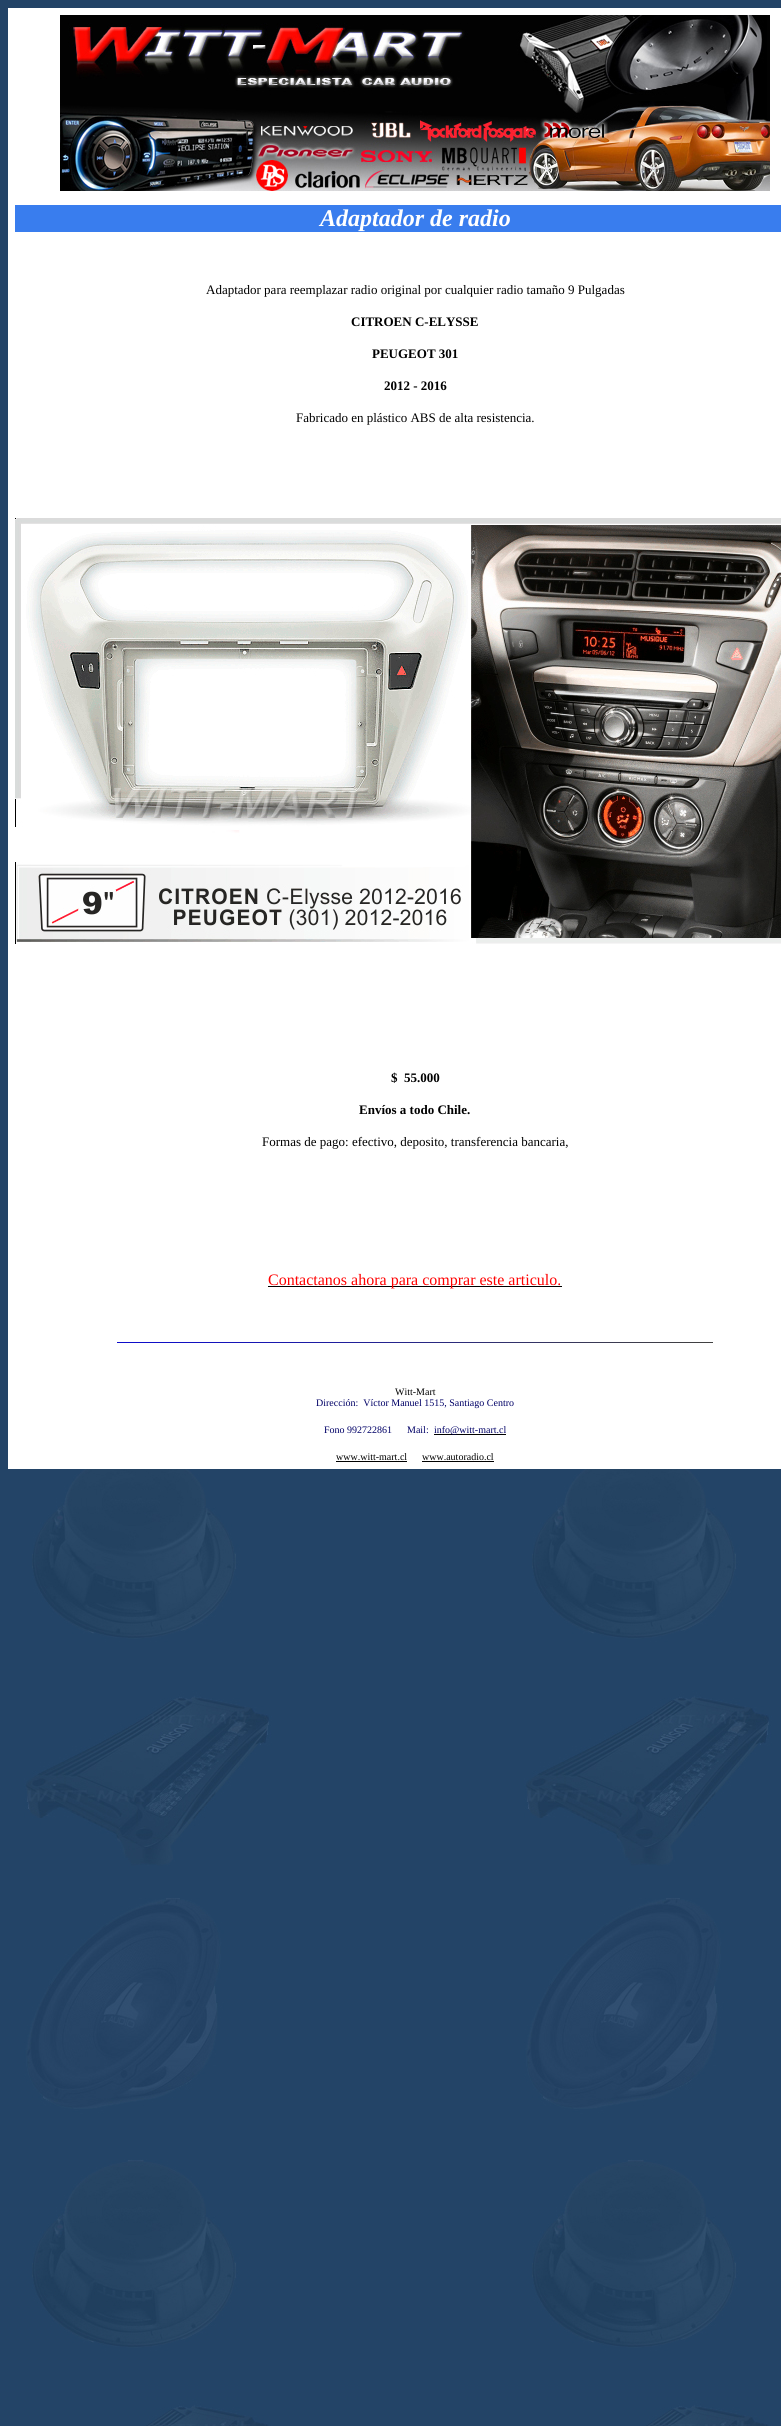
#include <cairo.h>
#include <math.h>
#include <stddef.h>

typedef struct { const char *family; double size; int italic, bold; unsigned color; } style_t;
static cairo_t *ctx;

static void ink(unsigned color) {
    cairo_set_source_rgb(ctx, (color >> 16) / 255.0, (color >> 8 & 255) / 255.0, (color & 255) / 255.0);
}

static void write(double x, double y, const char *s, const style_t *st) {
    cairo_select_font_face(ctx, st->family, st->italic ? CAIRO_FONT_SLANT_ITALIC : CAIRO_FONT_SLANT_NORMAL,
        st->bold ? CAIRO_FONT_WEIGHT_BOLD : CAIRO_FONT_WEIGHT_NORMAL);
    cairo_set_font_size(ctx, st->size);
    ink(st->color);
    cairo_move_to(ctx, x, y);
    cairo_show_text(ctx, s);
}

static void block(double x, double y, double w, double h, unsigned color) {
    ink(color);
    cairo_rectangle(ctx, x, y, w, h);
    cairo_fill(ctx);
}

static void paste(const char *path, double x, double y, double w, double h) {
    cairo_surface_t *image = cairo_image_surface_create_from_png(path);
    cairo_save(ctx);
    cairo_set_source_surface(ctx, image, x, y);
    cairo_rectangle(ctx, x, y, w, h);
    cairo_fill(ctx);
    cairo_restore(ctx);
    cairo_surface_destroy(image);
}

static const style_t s1 = {"Liberation Serif", 24, 1, 1, 0xffffff};
static const style_t s2 = {"Liberation Serif", 13, 0, 0, 0x000000};
static const style_t s3 = {"Liberation Serif", 13, 0, 1, 0x000000};
static const style_t s4 = {"Liberation Serif", 16, 0, 0, 0xff0000};
static const style_t s5 = {"Liberation Serif", 10, 0, 0, 0x000000};
static const style_t s6 = {"Liberation Serif", 10, 0, 0, 0x000066};

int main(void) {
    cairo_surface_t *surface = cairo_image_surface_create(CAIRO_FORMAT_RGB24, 781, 2426);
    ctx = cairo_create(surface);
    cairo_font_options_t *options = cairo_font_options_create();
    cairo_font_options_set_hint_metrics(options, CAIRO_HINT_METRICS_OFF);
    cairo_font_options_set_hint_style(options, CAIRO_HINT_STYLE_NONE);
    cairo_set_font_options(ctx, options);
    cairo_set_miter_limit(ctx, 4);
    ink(0xffffff);
    cairo_paint(ctx);
    paste("pic1.png", 0, 0, 781, 2426);
    block(8, 8, 773, 1461, 0xffffff);
    paste("pic2.png", 60, 15, 710, 176);
    block(15, 205, 766, 27, 0x397dee);
    write(320, 226, "Adaptador de radio", &s1);
    write(206, 294, "Adaptador para reemplazar radio original por cualquier radio tamaño 9 Pulgadas", &s2);
    write(351, 326, "CITROEN C-ELYSSE", &s3);
    write(372, 358, "PEUGEOT 301", &s3);
    write(384, 390, "2012 - 2016", &s3);
    write(296, 422, "Fabricado en plástico ABS de alta resistencia.", &s2);
    paste("pic3.png", 15, 518, 766, 426);
    write(391, 1082, "$  55.000", &s3);
    write(359, 1114, "Envíos a todo Chile.", &s3);
    write(262, 1146, "Formas de pago: efectivo, deposito, transferencia bancaria,", &s2);
    block(268, 1286, 294, 1, 0x000000);
    write(268, 1285, "Contactanos ahora para comprar este articulo.", &s4);
    paste("pic4.png", 117, 1342, 596, 1);
    write(395, 1395, "Witt-Mart", &s5);
    write(316, 1406, "Dirección:  Víctor Manuel 1515, Santiago Centro", &s6);
    write(324, 1433, "Fono 992722861", &s6);
    write(407, 1433, "Mail:", &s6);
    block(434, 1434, 72, 1, 0x000000);
    write(434, 1433, "info@witt-mart.cl", &s6);
    write(336, 1460, "www.witt-mart.cl", &s5);
    block(336, 1461, 71, 1, 0x000000);
    write(422, 1460, "www.autoradio.cl", &s5);
    block(422, 1461, 72, 1, 0x000000);
    cairo_surface_write_to_png(surface, "screenshot.png");
    cairo_font_options_destroy(options);
    cairo_destroy(ctx);
    cairo_surface_destroy(surface);
    return 0;
}
